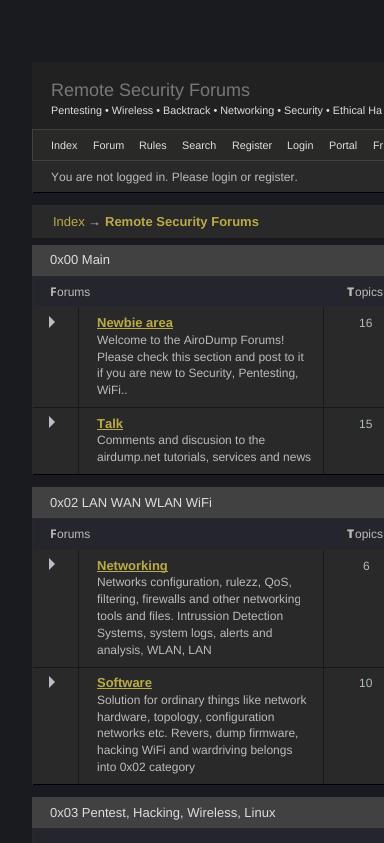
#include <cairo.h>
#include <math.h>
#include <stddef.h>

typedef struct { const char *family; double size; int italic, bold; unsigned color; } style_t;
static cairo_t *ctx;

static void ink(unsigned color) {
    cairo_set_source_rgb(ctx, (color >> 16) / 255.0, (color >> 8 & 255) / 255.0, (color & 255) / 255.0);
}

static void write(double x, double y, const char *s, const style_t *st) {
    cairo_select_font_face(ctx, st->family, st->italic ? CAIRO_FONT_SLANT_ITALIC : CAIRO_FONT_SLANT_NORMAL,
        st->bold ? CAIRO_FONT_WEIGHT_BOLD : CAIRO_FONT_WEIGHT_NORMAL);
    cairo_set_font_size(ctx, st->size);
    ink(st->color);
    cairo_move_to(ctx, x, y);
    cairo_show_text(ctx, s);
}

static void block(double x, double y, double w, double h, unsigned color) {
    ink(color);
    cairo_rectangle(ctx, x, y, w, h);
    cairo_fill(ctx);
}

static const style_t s1 = {"Liberation Sans", 18, 0, 0, 0x777777};
static const style_t s2 = {"Liberation Sans", 10.8, 0, 0, 0xdddddd};
static const style_t s3 = {"Liberation Sans", 12, 0, 0, 0xbdb9b9};
static const style_t s4 = {"Liberation Sans", 13, 0, 0, 0xbaab44};
static const style_t s5 = {"Liberation Sans", 13, 0, 0, 0xbdb9b9};
static const style_t s6 = {"Liberation Sans", 13, 0, 1, 0xbaab44};
static const style_t s7 = {"Liberation Sans", 13, 0, 0, 0xdddddd};
static const style_t s8 = {"Noto Sans", 12, 0, 1, 0xbdb9b9};
static const style_t s9 = {"Noto Sans Black", 12, 0, 0, 0xbdb9b9};
static const style_t s10 = {"Liberation Sans", 12, 0, 0, 0xaebbbf};

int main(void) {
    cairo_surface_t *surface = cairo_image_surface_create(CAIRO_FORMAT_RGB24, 384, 843);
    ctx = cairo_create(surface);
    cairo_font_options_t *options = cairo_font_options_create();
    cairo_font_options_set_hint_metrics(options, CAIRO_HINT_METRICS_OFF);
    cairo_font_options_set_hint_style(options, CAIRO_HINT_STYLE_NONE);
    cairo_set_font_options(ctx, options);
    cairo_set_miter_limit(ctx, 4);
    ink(0x1a1b1f);
    cairo_paint(ctx);
    block(32, 62, 352, 67, 0x222121);
    write(51, 96, "Remote Security Forums", &s1);
    write(51, 114, "Pentesting • Wireless • Backtrack • Networking • Security • Ethical Ha", &s2);
    ink(0x292928);
    cairo_rectangle(ctx, 32.5, 129.5, 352, 31);
    cairo_fill_preserve(ctx);
    ink(0x414145);
    cairo_set_line_width(ctx, 1);
    cairo_stroke(ctx);
    write(51, 149, "Index", &s2);
    write(93, 149, "Forum", &s2);
    write(139, 149, "Rules", &s2);
    write(182, 149, "Search", &s2);
    write(232, 149, "Register", &s2);
    write(287, 149, "Login", &s2);
    write(329, 149, "Portal", &s2);
    write(373, 149, "Fr", &s2);
    block(33, 161, 351, 31, 0x292929);
    block(32, 192, 352, 1, 0x000011);
    block(32, 161, 1, 32, 0x292929);
    write(51, 181, "You are not logged in. Please login or register.", &s3);
    block(32, 205, 352, 33, 0x292929);
    write(53, 226, "Index", &s4);
    write(88, 226, "→", &s5);
    write(105, 226, "Remote Security Forums", &s6);
    block(32, 245, 352, 31, 0x414141);
    write(50, 264, "0x00 Main", &s7);
    block(33, 277, 351, 30, 0x25252d);
    block(32, 276, 352, 1, 0x292929);
    block(32, 276, 1, 31, 0x292929);
    write(50, 296, "F", &s8);
    write(57, 296, "orums", &s3);
    write(347, 296, "T", &s9);
    write(355, 296, "opics", &s3);
    block(33, 307, 351, 167, 0x292929);
    block(32, 474, 352, 1, 0x000011);
    block(32, 307, 1, 168, 0x292929);
    ink(0xbabfc6);
    cairo_new_path(ctx);
    cairo_move_to(ctx, 49, 328);
    cairo_line_to(ctx, 49, 316);
    cairo_line_to(ctx, 55, 322);
    cairo_close_path(ctx);
    cairo_fill(ctx);
    block(78, 308, 1, 99, 0x181818);
    write(97, 327, "Newbie area", &s6);
    block(97, 328, 76, 1, 0xbaab44);
    write(97, 344, "Welcome to the AiroDump Forums!", &s3);
    write(97, 361, "Please check this section and post to it", &s3);
    write(97, 377, "if you are new to Security, Pentesting,", &s3);
    write(97, 394, "WiFi..", &s3);
    block(323, 308, 1, 99, 0x181818);
    write(359, 327, "16", &s10);
    block(33, 407, 351, 1, 0x181818);
    ink(0xbabfc6);
    cairo_new_path(ctx);
    cairo_move_to(ctx, 49, 428);
    cairo_line_to(ctx, 49, 416);
    cairo_line_to(ctx, 55, 422);
    cairo_close_path(ctx);
    cairo_fill(ctx);
    block(78, 408, 1, 66, 0x181818);
    write(97, 428, "Talk", &s6);
    block(97, 429, 26, 1, 0xbaab44);
    write(97, 444, "Comments and discusion to the", &s3);
    write(97, 461, "airdump.net tutorials, services and news", &s3);
    block(323, 408, 1, 66, 0x181818);
    write(359, 428, "15", &s10);
    block(32, 487, 352, 31, 0x414141);
    write(50, 507, "0x02 LAN WAN WLAN WiFi", &s7);
    block(33, 519, 351, 30, 0x25252d);
    block(32, 518, 352, 1, 0x292929);
    block(32, 518, 1, 31, 0x292929);
    write(50, 538, "F", &s8);
    write(57, 538, "orums", &s3);
    write(347, 538, "T", &s9);
    write(355, 538, "opics", &s3);
    block(33, 549, 351, 235, 0x292929);
    block(32, 784, 352, 1, 0x000011);
    block(32, 549, 1, 236, 0x292929);
    ink(0xbabfc6);
    cairo_new_path(ctx);
    cairo_move_to(ctx, 49, 570);
    cairo_line_to(ctx, 49, 558);
    cairo_line_to(ctx, 55, 564);
    cairo_close_path(ctx);
    cairo_fill(ctx);
    block(78, 550, 1, 117, 0x181818);
    block(97, 571, 71, 1, 0xbaab44);
    write(97, 570, "Networking", &s6);
    write(97, 586, "Networks configuration, rulezz, QoS,", &s3);
    write(97, 603, "filtering, firewalls and other networking", &s3);
    write(97, 620, "tools and files. Intrussion Detection", &s3);
    write(97, 637, "Systems, system logs, alerts and", &s3);
    write(97, 654, "analysis, WLAN, LAN", &s3);
    block(323, 550, 1, 117, 0x181818);
    write(363, 570, "6", &s10);
    block(33, 667, 351, 1, 0x181818);
    ink(0xbabfc6);
    cairo_new_path(ctx);
    cairo_move_to(ctx, 49, 688);
    cairo_line_to(ctx, 49, 676);
    cairo_line_to(ctx, 55, 682);
    cairo_close_path(ctx);
    cairo_fill(ctx);
    block(78, 668, 1, 116, 0x181818);
    write(97, 687, "Software", &s6);
    block(97, 688, 55, 1, 0xbaab44);
    write(97, 704, "Solution for ordinary things like network", &s3);
    write(97, 721, "hardware, topology, configuration", &s3);
    write(97, 737, "networks etc. Revers, dump firmware,", &s3);
    write(97, 754, "hacking WiFi and wardriving belongs", &s3);
    write(97, 771, "into 0x02 category", &s3);
    block(323, 668, 1, 116, 0x181818);
    write(359, 687, "10", &s10);
    block(32, 797, 352, 31, 0x414141);
    write(50, 817, "0x03 Pentest, Hacking, Wireless, Linux", &s7);
    block(33, 829, 351, 14, 0x25252d);
    block(32, 828, 352, 1, 0x292929);
    block(32, 828, 1, 15, 0x292929);
    cairo_surface_write_to_png(surface, "screenshot.png");
    cairo_font_options_destroy(options);
    cairo_destroy(ctx);
    cairo_surface_destroy(surface);
    return 0;
}
